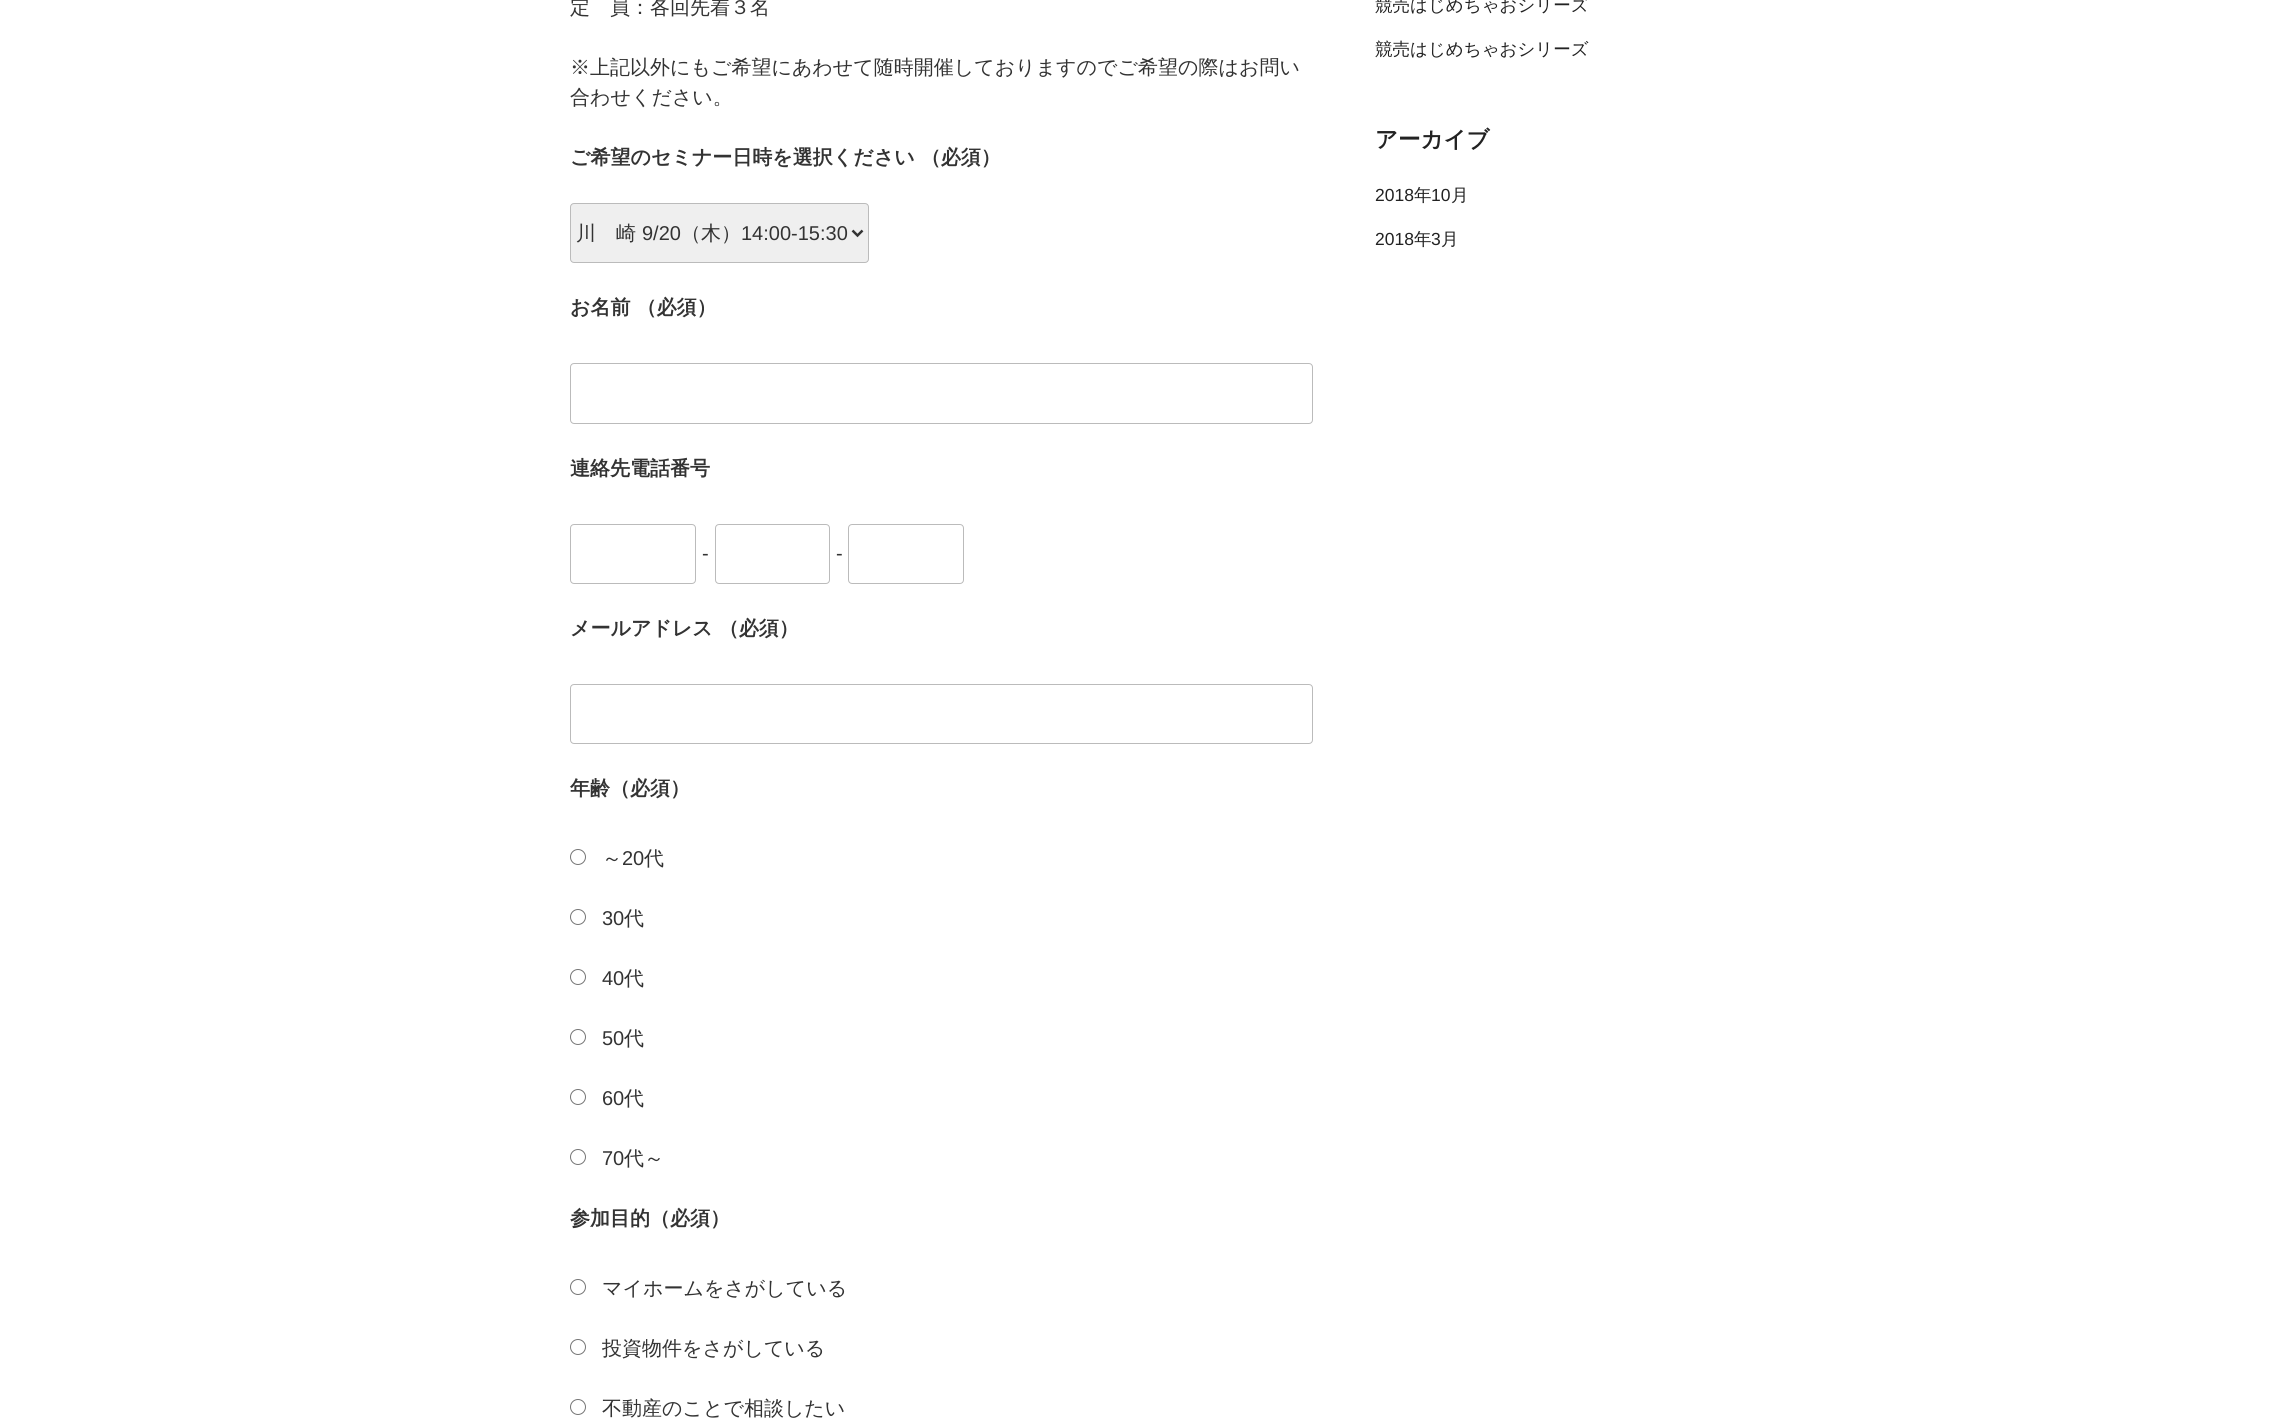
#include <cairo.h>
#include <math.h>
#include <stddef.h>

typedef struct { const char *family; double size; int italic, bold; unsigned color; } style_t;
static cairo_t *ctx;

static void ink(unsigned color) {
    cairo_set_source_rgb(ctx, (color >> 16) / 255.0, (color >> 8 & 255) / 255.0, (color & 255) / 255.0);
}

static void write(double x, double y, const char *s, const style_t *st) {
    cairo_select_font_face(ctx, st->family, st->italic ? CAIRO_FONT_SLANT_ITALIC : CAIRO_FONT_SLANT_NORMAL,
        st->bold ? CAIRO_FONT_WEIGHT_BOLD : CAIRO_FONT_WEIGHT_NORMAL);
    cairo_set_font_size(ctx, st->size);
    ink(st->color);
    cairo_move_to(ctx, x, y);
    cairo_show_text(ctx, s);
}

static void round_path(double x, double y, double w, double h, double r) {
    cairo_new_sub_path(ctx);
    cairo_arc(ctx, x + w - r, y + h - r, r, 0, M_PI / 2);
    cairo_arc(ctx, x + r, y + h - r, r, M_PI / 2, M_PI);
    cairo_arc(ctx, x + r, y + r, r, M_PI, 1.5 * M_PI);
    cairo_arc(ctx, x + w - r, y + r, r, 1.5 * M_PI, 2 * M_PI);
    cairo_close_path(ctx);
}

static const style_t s1 = {"WenQuanYi Zen Hei Medium", 20, 0, 0, 0x333333};
static const style_t s2 = {"WenQuanYi Zen Hei", 20, 0, 1, 0x333333};
static const style_t s3 = {"Liberation Sans", 20, 0, 0, 0x333333};
static const style_t s4 = {"WenQuanYi Zen Hei Medium", 17.5, 0, 0, 0x222222};
static const style_t s5 = {"WenQuanYi Zen Hei", 22.5, 0, 1, 0x222222};
static const style_t s6 = {"Liberation Sans", 17.5, 0, 0, 0x222222};

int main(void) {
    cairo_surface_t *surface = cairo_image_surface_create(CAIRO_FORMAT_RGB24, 2269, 1418);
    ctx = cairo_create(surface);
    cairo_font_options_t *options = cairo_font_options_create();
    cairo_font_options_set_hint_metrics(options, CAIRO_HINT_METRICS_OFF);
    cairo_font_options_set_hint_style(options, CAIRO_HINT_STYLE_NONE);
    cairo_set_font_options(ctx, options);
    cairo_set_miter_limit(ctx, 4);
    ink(0xffffff);
    cairo_paint(ctx);
    write(570, 14, "定　員：各回先着３名", &s1);
    write(570, 74, "※上記以外にもご希望にあわせて随時開催しておりますのでご希望の際はお問い", &s1);
    write(570, 104, "合わせください。", &s1);
    write(570, 164, "ご希望のセミナー日時を選択ください （必須）", &s2);
    ink(0xefefef);
    round_path(570.5, 203.5, 298, 59, 3.5);
    cairo_fill_preserve(ctx);
    ink(0xbbbbbb);
    cairo_set_line_width(ctx, 1);
    cairo_stroke(ctx);
    cairo_new_path(ctx);
    cairo_move_to(ctx, 852.5, 230.5);
    cairo_line_to(ctx, 857.5, 235.5);
    cairo_line_to(ctx, 862.5, 230.5);
    ink(0x333333);
    cairo_set_line_width(ctx, 2.5);
    cairo_stroke(ctx);
    write(576, 240, "川　崎", &s1);
    write(642, 240, "9/20", &s3);
    write(681, 240, "（木）", &s1);
    write(741, 240, "14:00-15:30", &s3);
    write(570, 314, "お名前 （必須）", &s2);
    round_path(570.5, 363.5, 742, 60, 3.5);
    ink(0xbbbbbb);
    cairo_set_line_width(ctx, 1);
    cairo_stroke(ctx);
    write(570, 475, "連絡先電話番号", &s2);
    round_path(570.5, 524.5, 125, 59, 3.5);
    ink(0xbbbbbb);
    cairo_stroke(ctx);
    write(702, 560, "-", &s3);
    round_path(715.5, 524.5, 114, 59, 3.5);
    ink(0xbbbbbb);
    cairo_stroke(ctx);
    write(836, 560, "-", &s3);
    round_path(848.5, 524.5, 115, 59, 3.5);
    ink(0xbbbbbb);
    cairo_stroke(ctx);
    write(570, 635, "メールアドレス （必須）", &s2);
    round_path(570.5, 684.5, 742, 59, 3.5);
    ink(0xbbbbbb);
    cairo_stroke(ctx);
    write(570, 795, "年齢（必須）", &s2);
    cairo_new_path(ctx);
    cairo_arc(ctx, 578, 857, 7.5, 0, 2 * M_PI);
    ink(0x767676);
    cairo_stroke(ctx);
    write(602, 865, "～", &s1);
    write(622, 865, "20", &s3);
    write(644, 865, "代", &s1);
    cairo_new_path(ctx);
    cairo_arc(ctx, 578, 917, 7.5, 0, 2 * M_PI);
    ink(0x767676);
    cairo_stroke(ctx);
    write(602, 925, "30", &s3);
    write(624, 925, "代", &s1);
    cairo_new_path(ctx);
    cairo_arc(ctx, 578, 977, 7.5, 0, 2 * M_PI);
    ink(0x767676);
    cairo_stroke(ctx);
    write(602, 985, "40", &s3);
    write(624, 985, "代", &s1);
    cairo_new_path(ctx);
    cairo_arc(ctx, 578, 1037, 7.5, 0, 2 * M_PI);
    ink(0x767676);
    cairo_stroke(ctx);
    write(602, 1045, "50", &s3);
    write(624, 1045, "代", &s1);
    cairo_new_path(ctx);
    cairo_arc(ctx, 578, 1097, 7.5, 0, 2 * M_PI);
    ink(0x767676);
    cairo_stroke(ctx);
    write(602, 1105, "60", &s3);
    write(624, 1105, "代", &s1);
    cairo_new_path(ctx);
    cairo_arc(ctx, 578, 1157, 7.5, 0, 2 * M_PI);
    ink(0x767676);
    cairo_stroke(ctx);
    write(602, 1165, "70", &s3);
    write(624, 1165, "代～", &s1);
    write(570, 1225, "参加目的（必須）", &s2);
    cairo_new_path(ctx);
    cairo_arc(ctx, 578, 1287, 7.5, 0, 2 * M_PI);
    ink(0x767676);
    cairo_stroke(ctx);
    write(602, 1295, "マイホームをさがしている", &s1);
    cairo_new_path(ctx);
    cairo_arc(ctx, 578, 1347, 7.5, 0, 2 * M_PI);
    ink(0x767676);
    cairo_stroke(ctx);
    write(602, 1355, "投資物件をさがしている", &s1);
    cairo_new_path(ctx);
    cairo_arc(ctx, 578, 1407, 7.5, 0, 2 * M_PI);
    ink(0x767676);
    cairo_stroke(ctx);
    write(602, 1415, "不動産のことで相談したい", &s1);
    write(1375, 11, "競売はじめちゃおシリーズ", &s4);
    write(1375, 55, "競売はじめちゃおシリーズ", &s4);
    write(1375, 147, "アーカイブ", &s5);
    write(1375, 201, "2018", &s6);
    write(1414, 201, "年", &s4);
    write(1431, 201, "10", &s6);
    write(1451, 201, "月", &s4);
    write(1375, 245, "2018", &s6);
    write(1414, 245, "年", &s4);
    write(1431, 245, "3", &s6);
    write(1441, 245, "月", &s4);
    cairo_surface_write_to_png(surface, "screenshot.png");
    cairo_font_options_destroy(options);
    cairo_destroy(ctx);
    cairo_surface_destroy(surface);
    return 0;
}
